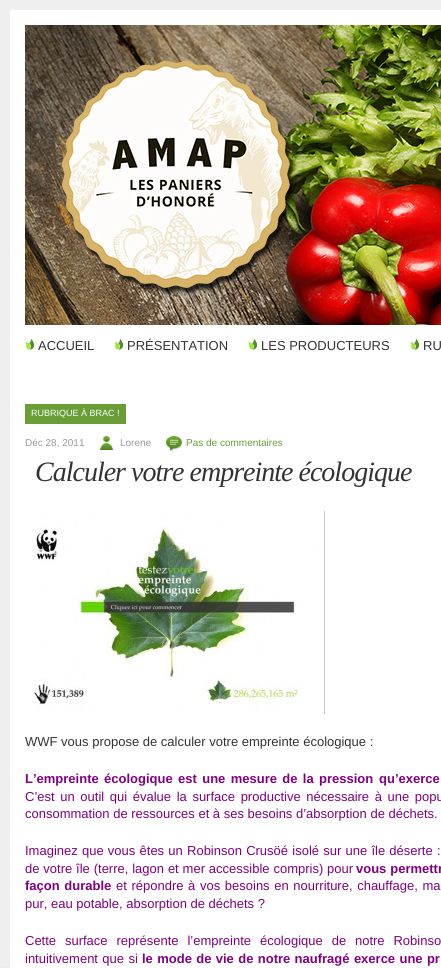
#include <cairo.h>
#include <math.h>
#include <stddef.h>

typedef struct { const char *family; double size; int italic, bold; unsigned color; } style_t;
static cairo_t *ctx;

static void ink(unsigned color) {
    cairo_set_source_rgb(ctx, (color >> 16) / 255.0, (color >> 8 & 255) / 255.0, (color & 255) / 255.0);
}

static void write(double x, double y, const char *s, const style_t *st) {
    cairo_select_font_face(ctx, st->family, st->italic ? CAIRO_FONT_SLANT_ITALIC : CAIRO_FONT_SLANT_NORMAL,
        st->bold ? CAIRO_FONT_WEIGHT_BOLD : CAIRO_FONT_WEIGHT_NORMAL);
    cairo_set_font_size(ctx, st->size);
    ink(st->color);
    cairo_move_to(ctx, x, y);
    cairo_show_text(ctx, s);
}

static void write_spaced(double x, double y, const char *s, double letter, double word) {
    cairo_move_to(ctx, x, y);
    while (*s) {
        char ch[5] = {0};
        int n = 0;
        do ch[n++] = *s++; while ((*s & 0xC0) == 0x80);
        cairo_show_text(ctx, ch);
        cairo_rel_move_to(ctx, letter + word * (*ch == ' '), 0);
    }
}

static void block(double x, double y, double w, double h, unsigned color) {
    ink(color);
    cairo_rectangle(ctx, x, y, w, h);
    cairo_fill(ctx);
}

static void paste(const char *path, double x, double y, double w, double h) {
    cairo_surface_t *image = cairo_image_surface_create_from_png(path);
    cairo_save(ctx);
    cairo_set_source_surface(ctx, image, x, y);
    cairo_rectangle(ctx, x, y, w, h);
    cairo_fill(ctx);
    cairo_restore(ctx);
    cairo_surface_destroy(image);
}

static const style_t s1 = {"Liberation Sans", 13, 0, 0, 0x333333};
static const style_t s2 = {"Liberation Sans", 9, 0, 0, 0xffffff};
static const style_t s3 = {"Liberation Sans", 10, 0, 0, 0x999999};
static const style_t s4 = {"Liberation Sans", 10, 0, 0, 0x699d36};
static const style_t s5 = {"Liberation Sans", 13, 0, 0, 0x800080};

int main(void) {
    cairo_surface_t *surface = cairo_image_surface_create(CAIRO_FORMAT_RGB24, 441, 968);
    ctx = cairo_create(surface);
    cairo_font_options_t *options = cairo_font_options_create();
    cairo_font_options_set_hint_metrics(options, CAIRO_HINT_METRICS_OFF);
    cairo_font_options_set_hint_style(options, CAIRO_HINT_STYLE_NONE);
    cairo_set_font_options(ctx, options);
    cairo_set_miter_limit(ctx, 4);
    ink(0xefefef);
    cairo_paint(ctx);
    paste("pic1.png", 0, 966, 10, 2);
    block(10, 10, 431, 958, 0xffffff);
    paste("pic2.png", 25, 25, 416, 300);
    paste("pic3.png", 25, 339, 9, 11);
    write(38, 350, "ACCUEIL", &s1);
    paste("pic3.png", 114, 339, 9, 11);
    write(127, 350, "PRÉSENTATION", &s1);
    paste("pic3.png", 248, 339, 9, 11);
    write(261, 350, "LES PRODUCTEURS", &s1);
    paste("pic3.png", 410, 339, 9, 11);
    write(423, 350, "RU", &s1);
    block(25, 404, 101, 20, 0x699d36);
    write(31, 416, "RUBRIQUE À BRAC !", &s2);
    write(25, 446, "Déc 28, 2011", &s3);
    paste("pic4.png", 100, 436, 13, 14);
    write(120, 446, "Lorene", &s3);
    paste("pic5.png", 166, 436, 16, 15);
    write(186, 446, "Pas de commentaires", &s4);
    cairo_select_font_face(ctx, "Liberation Serif", CAIRO_FONT_SLANT_ITALIC, CAIRO_FONT_WEIGHT_NORMAL);
    cairo_set_font_size(ctx, 28);
    ink(0x333333);
    write_spaced(35, 481, "Calculer votre empreinte écologique", -1, 0);
    paste("pic6.png", 33, 511, 292, 203);
    write(25, 746, "WWF vous propose de calculer votre empreinte écologique :", &s1);
    cairo_select_font_face(ctx, "Liberation Sans", CAIRO_FONT_SLANT_NORMAL, CAIRO_FONT_WEIGHT_BOLD);
    ink(0x800080);
    write_spaced(25, 783, "L’empreinte écologique est une mesure de la pression", 0, 1.75);
    write_spaced(379, 783, "qu’exerce", 0, 1.75);
    cairo_select_font_face(ctx, "Liberation Sans", CAIRO_FONT_SLANT_NORMAL, CAIRO_FONT_WEIGHT_NORMAL);
    write_spaced(25, 801, "C’est un outil qui évalue la surface productive nécessaire à une popu", 0, 2);
    write(25, 818, "consommation de ressources et à ses besoins d’absorption de déchets.", &s5);
    write_spaced(25, 855, "Imaginez que vous êtes un Robinson Crusöé isolé sur une île déserte :", 0, 0.6);
    write_spaced(25, 873, "de votre île (terre, lagon et mer accessible compris) pour", 0, 0.25);
    cairo_select_font_face(ctx, "Liberation Sans", CAIRO_FONT_SLANT_NORMAL, CAIRO_FONT_WEIGHT_BOLD);
    write_spaced(356, 873, "vous permettr", 0, 0.25);
    write_spaced(25, 890, "façon durable", 0, 1);
    cairo_select_font_face(ctx, "Liberation Sans", CAIRO_FONT_SLANT_NORMAL, CAIRO_FONT_WEIGHT_NORMAL);
    write_spaced(116, 890, "et répondre à vos besoins en nourriture, chauffage, ma", 0, 1);
    write(25, 908, "pur, eau potable, absorption de déchets ?", &s5);
    write_spaced(25, 945, "Cette surface représente l’empreinte écologique de notre Robinso", 0, 5.25);
    write_spaced(25, 963, "intuitivement que si", 0, 0.75);
    cairo_select_font_face(ctx, "Liberation Sans", CAIRO_FONT_SLANT_NORMAL, CAIRO_FONT_WEIGHT_BOLD);
    write_spaced(142, 963, "le mode de vie de notre naufragé exerce une pr", 0, 0.75);
    cairo_surface_write_to_png(surface, "screenshot.png");
    cairo_font_options_destroy(options);
    cairo_destroy(ctx);
    cairo_surface_destroy(surface);
    return 0;
}
